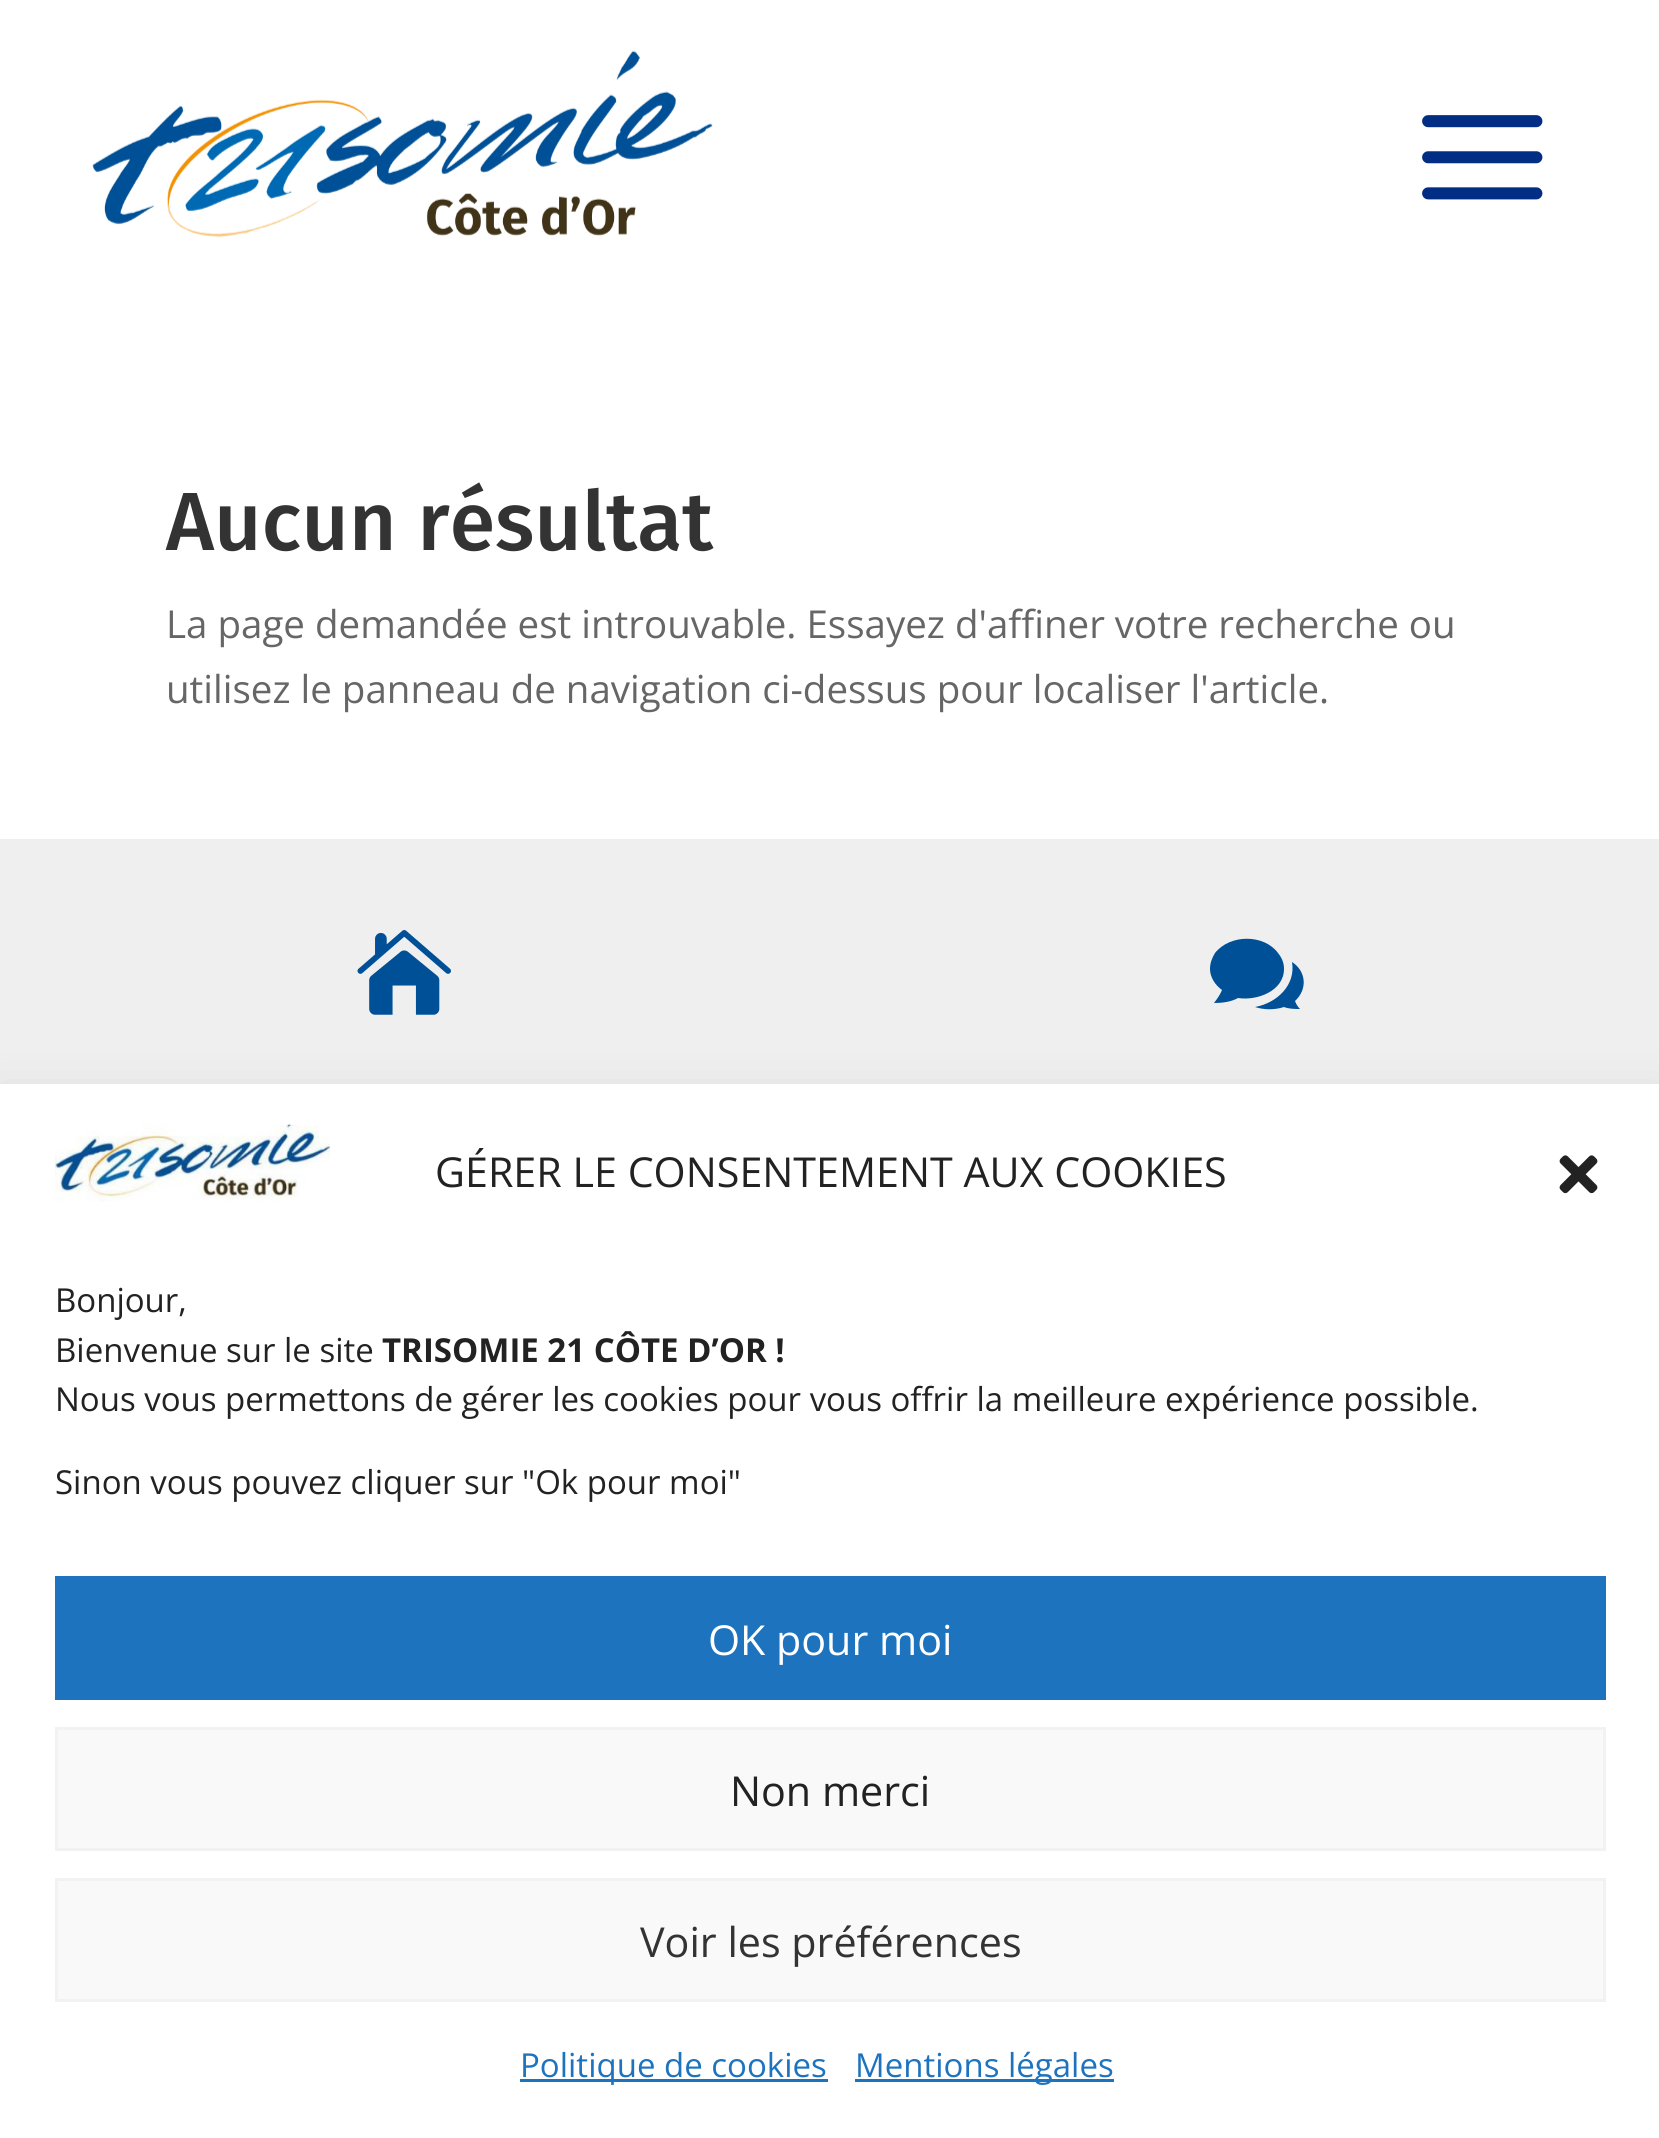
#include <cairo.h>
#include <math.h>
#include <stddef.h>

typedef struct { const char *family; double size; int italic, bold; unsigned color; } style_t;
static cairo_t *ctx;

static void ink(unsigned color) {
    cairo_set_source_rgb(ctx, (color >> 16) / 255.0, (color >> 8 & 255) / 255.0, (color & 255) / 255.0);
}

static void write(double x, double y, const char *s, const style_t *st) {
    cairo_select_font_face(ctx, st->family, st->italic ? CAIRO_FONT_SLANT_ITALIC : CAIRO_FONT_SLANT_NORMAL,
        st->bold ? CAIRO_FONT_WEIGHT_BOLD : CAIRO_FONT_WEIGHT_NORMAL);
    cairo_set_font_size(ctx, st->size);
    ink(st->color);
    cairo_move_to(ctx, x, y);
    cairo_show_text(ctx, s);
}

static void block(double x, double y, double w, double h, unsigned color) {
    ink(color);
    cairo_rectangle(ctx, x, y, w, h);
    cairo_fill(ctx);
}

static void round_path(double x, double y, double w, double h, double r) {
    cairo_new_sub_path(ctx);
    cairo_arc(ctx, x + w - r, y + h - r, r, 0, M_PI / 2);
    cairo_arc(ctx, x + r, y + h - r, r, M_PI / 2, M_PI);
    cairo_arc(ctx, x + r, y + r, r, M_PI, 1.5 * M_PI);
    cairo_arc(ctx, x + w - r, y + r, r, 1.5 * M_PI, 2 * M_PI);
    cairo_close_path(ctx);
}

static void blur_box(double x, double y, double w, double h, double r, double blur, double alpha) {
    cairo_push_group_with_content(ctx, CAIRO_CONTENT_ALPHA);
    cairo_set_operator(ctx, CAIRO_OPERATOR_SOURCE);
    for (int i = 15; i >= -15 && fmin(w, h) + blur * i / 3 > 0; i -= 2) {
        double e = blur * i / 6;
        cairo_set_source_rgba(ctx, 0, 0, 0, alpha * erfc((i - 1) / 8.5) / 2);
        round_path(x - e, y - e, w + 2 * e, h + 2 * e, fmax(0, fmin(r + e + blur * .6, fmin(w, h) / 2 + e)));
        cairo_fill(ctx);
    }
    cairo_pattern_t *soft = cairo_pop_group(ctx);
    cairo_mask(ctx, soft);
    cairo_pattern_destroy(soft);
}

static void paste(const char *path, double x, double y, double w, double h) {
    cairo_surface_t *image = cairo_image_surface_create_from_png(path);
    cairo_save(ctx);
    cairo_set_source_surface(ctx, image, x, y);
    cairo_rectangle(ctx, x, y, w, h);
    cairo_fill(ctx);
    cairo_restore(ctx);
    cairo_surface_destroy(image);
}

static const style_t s1 = {"Fira Sans Medium", 82.5, 0, 0, 0x333333};
static const style_t s2 = {"Open Sans", 38.5, 0, 0, 0x666666};
static const style_t s3 = {"Open Sans", 41.25, 0, 0, 0x222222};
static const style_t s4 = {"Open Sans", 33, 0, 0, 0x222222};
static const style_t s5 = {"Open Sans", 33, 0, 1, 0x222222};
static const style_t s6 = {"Open Sans", 41.25, 0, 0, 0xffffff};
static const style_t s7 = {"Open Sans", 41.25, 0, 0, 0x333333};
static const style_t s8 = {"Open Sans", 33, 0, 0, 0x1e73be};

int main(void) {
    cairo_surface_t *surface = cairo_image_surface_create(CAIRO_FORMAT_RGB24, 1659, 2138);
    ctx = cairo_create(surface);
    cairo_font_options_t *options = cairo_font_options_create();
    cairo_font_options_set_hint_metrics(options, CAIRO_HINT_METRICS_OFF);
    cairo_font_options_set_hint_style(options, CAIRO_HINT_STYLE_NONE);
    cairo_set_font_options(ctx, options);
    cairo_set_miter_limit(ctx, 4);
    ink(0xffffff);
    cairo_paint(ctx);
    paste("pic1.png", 92, 50, 621, 188);
    paste("pic2.png", 1422, 115, 121, 85);
    write(166, 550, "Aucun résultat", &s1);
    write(166, 638, "La page demandée est introuvable. Essayez d'affiner votre recherche ou", &s2);
    write(166, 703, "utilisez le panneau de navigation ci-dessus pour localiser l'article.", &s2);
    block(0, 839, 1659, 245, 0xefefef);
    paste("pic3.png", 357, 930, 94, 85);
    ink(0x005097);
    cairo_new_path(ctx);
    cairo_move_to(ctx, 1292, 962);
    cairo_curve_to(ctx, 1296, 985, 1277, 1003, 1255, 1007);
    cairo_curve_to(ctx, 1264, 1010, 1275, 1010, 1284, 1007);
    cairo_curve_to(ctx, 1289, 1009, 1295, 1009, 1300, 1009);
    cairo_curve_to(ctx, 1298, 1007, 1296, 1004, 1295, 1001);
    cairo_curve_to(ctx, 1308, 989, 1306, 971, 1292, 962);
    cairo_close_path(ctx);
    cairo_move_to(ctx, 1284, 969);
    cairo_curve_to(ctx, 1284, 963, 1282, 958, 1278, 953);
    cairo_curve_to(ctx, 1264, 934, 1230, 934, 1215, 953);
    cairo_curve_to(ctx, 1212, 958, 1210, 963, 1210, 969);
    cairo_curve_to(ctx, 1210, 977, 1215, 985, 1222, 990);
    cairo_curve_to(ctx, 1220, 995, 1217, 999, 1214, 1003);
    cairo_curve_to(ctx, 1222, 1003, 1231, 1002, 1238, 998);
    cairo_curve_to(ctx, 1257, 1001, 1284, 991, 1284, 969);
    cairo_close_path(ctx);
    cairo_fill(ctx);
    ink(0x000000);
    blur_box(0, 1111, 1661, 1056, 0, 27.5, 0.19);
    block(0, 1084, 1659, 1054, 0xffffff);
    paste("pic4.png", 55, 1124, 275, 78);
    write(435, 1187, "GÉRER LE CONSENTEMENT AUX COOKIES", &s3);
    paste("pic5.png", 1559, 1155, 39, 39);
    write(55, 1312, "Bonjour,", &s4);
    write(55, 1362, "Bienvenue sur le site", &s4);
    write(382, 1362, "TRISOMIE 21 CÔTE D’OR !", &s5);
    write(55, 1411, "Nous vous permettons de gérer les cookies pour vous offrir la meilleure expérience possible.", &s4);
    write(55, 1494, "Sinon vous pouvez cliquer sur \"Ok pour moi\"", &s4);
    block(55, 1576, 1551, 124, 0x1e73be);
    write(708, 1655, "OK pour moi", &s6);
    ink(0xf9f9f9);
    cairo_rectangle(ctx, 56.5, 1728.5, 1548, 121);
    cairo_fill_preserve(ctx);
    ink(0xf2f2f2);
    cairo_set_line_width(ctx, 3);
    cairo_stroke(ctx);
    write(730, 1806, "Non merci", &s3);
    ink(0xf9f9f9);
    cairo_rectangle(ctx, 56.5, 1879.5, 1548, 121);
    cairo_fill_preserve(ctx);
    ink(0xf2f2f2);
    cairo_stroke(ctx);
    write(640, 1957, "Voir les préférences", &s7);
    block(520, 2079, 308, 3, 0x1e73be);
    write(520, 2077, "Politique de cookies", &s8);
    block(855, 2079, 259, 3, 0x1e73be);
    write(855, 2077, "Mentions légales", &s8);
    cairo_surface_write_to_png(surface, "screenshot.png");
    cairo_font_options_destroy(options);
    cairo_destroy(ctx);
    cairo_surface_destroy(surface);
    return 0;
}
